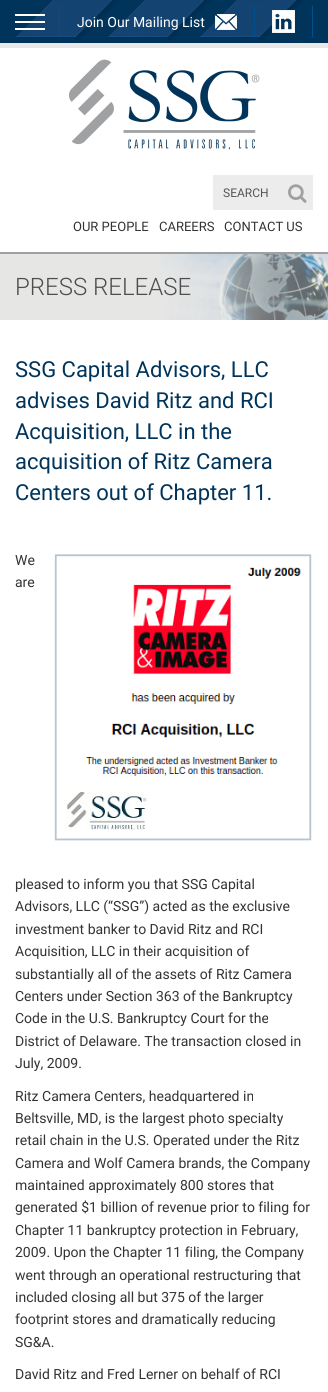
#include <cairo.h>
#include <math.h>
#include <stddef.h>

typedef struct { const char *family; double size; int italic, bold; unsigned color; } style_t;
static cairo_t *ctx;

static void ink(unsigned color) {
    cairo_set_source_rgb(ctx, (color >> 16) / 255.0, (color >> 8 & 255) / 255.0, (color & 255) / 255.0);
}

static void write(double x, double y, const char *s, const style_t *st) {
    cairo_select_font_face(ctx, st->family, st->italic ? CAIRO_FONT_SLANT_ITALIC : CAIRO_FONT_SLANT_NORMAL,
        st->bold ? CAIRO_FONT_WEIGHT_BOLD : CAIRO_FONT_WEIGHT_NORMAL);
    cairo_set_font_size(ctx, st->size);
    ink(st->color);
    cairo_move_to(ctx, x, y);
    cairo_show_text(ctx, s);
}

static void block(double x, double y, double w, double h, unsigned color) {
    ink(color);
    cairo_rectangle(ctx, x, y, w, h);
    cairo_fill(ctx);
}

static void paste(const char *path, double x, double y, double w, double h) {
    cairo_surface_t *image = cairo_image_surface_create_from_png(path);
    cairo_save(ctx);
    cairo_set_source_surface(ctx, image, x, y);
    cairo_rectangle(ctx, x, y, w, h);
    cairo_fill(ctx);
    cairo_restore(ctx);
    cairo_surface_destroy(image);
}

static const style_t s1 = {"Roboto", 14, 0, 0, 0xffffff};
static const style_t s2 = {"Roboto", 12, 0, 0, 0x555555};
static const style_t s3 = {"Roboto", 13, 0, 0, 0x333333};
static const style_t s4 = {"Roboto Light", 24, 0, 0, 0x4d4d4e};
static const style_t s5 = {"Roboto", 22, 0, 0, 0x00345b};
static const style_t s6 = {"Roboto", 14, 0, 0, 0x333333};

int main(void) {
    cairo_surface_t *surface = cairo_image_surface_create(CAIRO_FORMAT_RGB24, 328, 1392);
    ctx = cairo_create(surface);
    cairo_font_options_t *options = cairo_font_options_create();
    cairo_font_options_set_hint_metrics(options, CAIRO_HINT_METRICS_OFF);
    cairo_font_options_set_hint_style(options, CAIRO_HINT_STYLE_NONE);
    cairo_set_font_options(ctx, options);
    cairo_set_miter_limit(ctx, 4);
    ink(0xffffff);
    cairo_paint(ctx);
    block(0, 252, 328, 2, 0x9fa1a1);
    block(0, 0, 328, 43, 0x00345b);
    block(0, 43, 328, 5, 0xe8e8e8);
    paste("pic1.png", 15, 0, 288, 40);
    block(59, 6, 1, 30, 0x00518b);
    write(77, 27, "Join Our Mailing List", &s1);
    paste("pic2.png", 215, 14, 22, 16);
    block(312, 6, 1, 31, 0x00518b);
    block(254, 6, 1, 31, 0x00518b);
    paste("pic3.png", 272, 10, 23, 23);
    paste("pic4.png", 69, 59, 191, 91);
    block(15, 14, 30, 2, 0xffffff);
    block(15, 21, 30, 2, 0xffffff);
    block(15, 28, 30, 2, 0xffffff);
    block(213, 175, 100, 35, 0xececec);
    write(223, 197, "SEARCH", &s2);
    paste("pic5.png", 288, 184, 19, 19);
    write(73, 231, "OUR PEOPLE", &s3);
    write(159, 231, "CAREERS", &s3);
    write(224, 231, "CONTACT US", &s3);
    block(0, 254, 328, 66, 0xe6e6e5);
    paste("pic6.png", 160, 254, 168, 66);
    write(15, 295, "PRESS RELEASE", &s4);
    write(15, 377, "SSG Capital Advisors, LLC", &s5);
    write(15, 408, "advises David Ritz and RCI", &s5);
    write(15, 439, "Acquisition, LLC in the", &s5);
    write(15, 469, "acquisition of Ritz Camera", &s5);
    write(15, 500, "Centers out of Chapter 11.", &s5);
    paste("pic7.png", 54, 554, 258, 287);
    write(15, 565, "We", &s6);
    write(15, 587, "are", &s6);
    write(15, 889, "pleased to inform you that SSG Capital", &s6);
    write(15, 911, "Advisors, LLC (“SSG”) acted as the exclusive", &s6);
    write(15, 934, "investment banker to David Ritz and RCI", &s6);
    write(15, 956, "Acquisition, LLC in their acquisition of", &s6);
    write(15, 979, "substantially all of the assets of Ritz Camera", &s6);
    write(15, 1001, "Centers under Section 363 of the Bankruptcy", &s6);
    write(15, 1023, "Code in the U.S. Bankruptcy Court for the", &s6);
    write(15, 1046, "District of Delaware. The transaction closed in", &s6);
    write(15, 1068, "July, 2009.", &s6);
    write(15, 1101, "Ritz Camera Centers, headquartered in", &s6);
    write(15, 1123, "Beltsville, MD, is the largest photo specialty", &s6);
    write(15, 1145, "retail chain in the U.S. Operated under the Ritz", &s6);
    write(15, 1168, "Camera and Wolf Camera brands, the Company", &s6);
    write(15, 1190, "maintained approximately 800 stores that", &s6);
    write(15, 1212, "generated $1 billion of revenue prior to filing for", &s6);
    write(15, 1235, "Chapter 11 bankruptcy protection in February,", &s6);
    write(15, 1257, "2009. Upon the Chapter 11 filing, the Company", &s6);
    write(15, 1280, "went through an operational restructuring that", &s6);
    write(15, 1302, "included closing all but 375 of the larger", &s6);
    write(15, 1324, "footprint stores and dramatically reducing", &s6);
    write(15, 1347, "SG&A.", &s6);
    write(15, 1379, "David Ritz and Fred Lerner on behalf of RCI", &s6);
    cairo_surface_write_to_png(surface, "screenshot.png");
    cairo_font_options_destroy(options);
    cairo_destroy(ctx);
    cairo_surface_destroy(surface);
    return 0;
}
